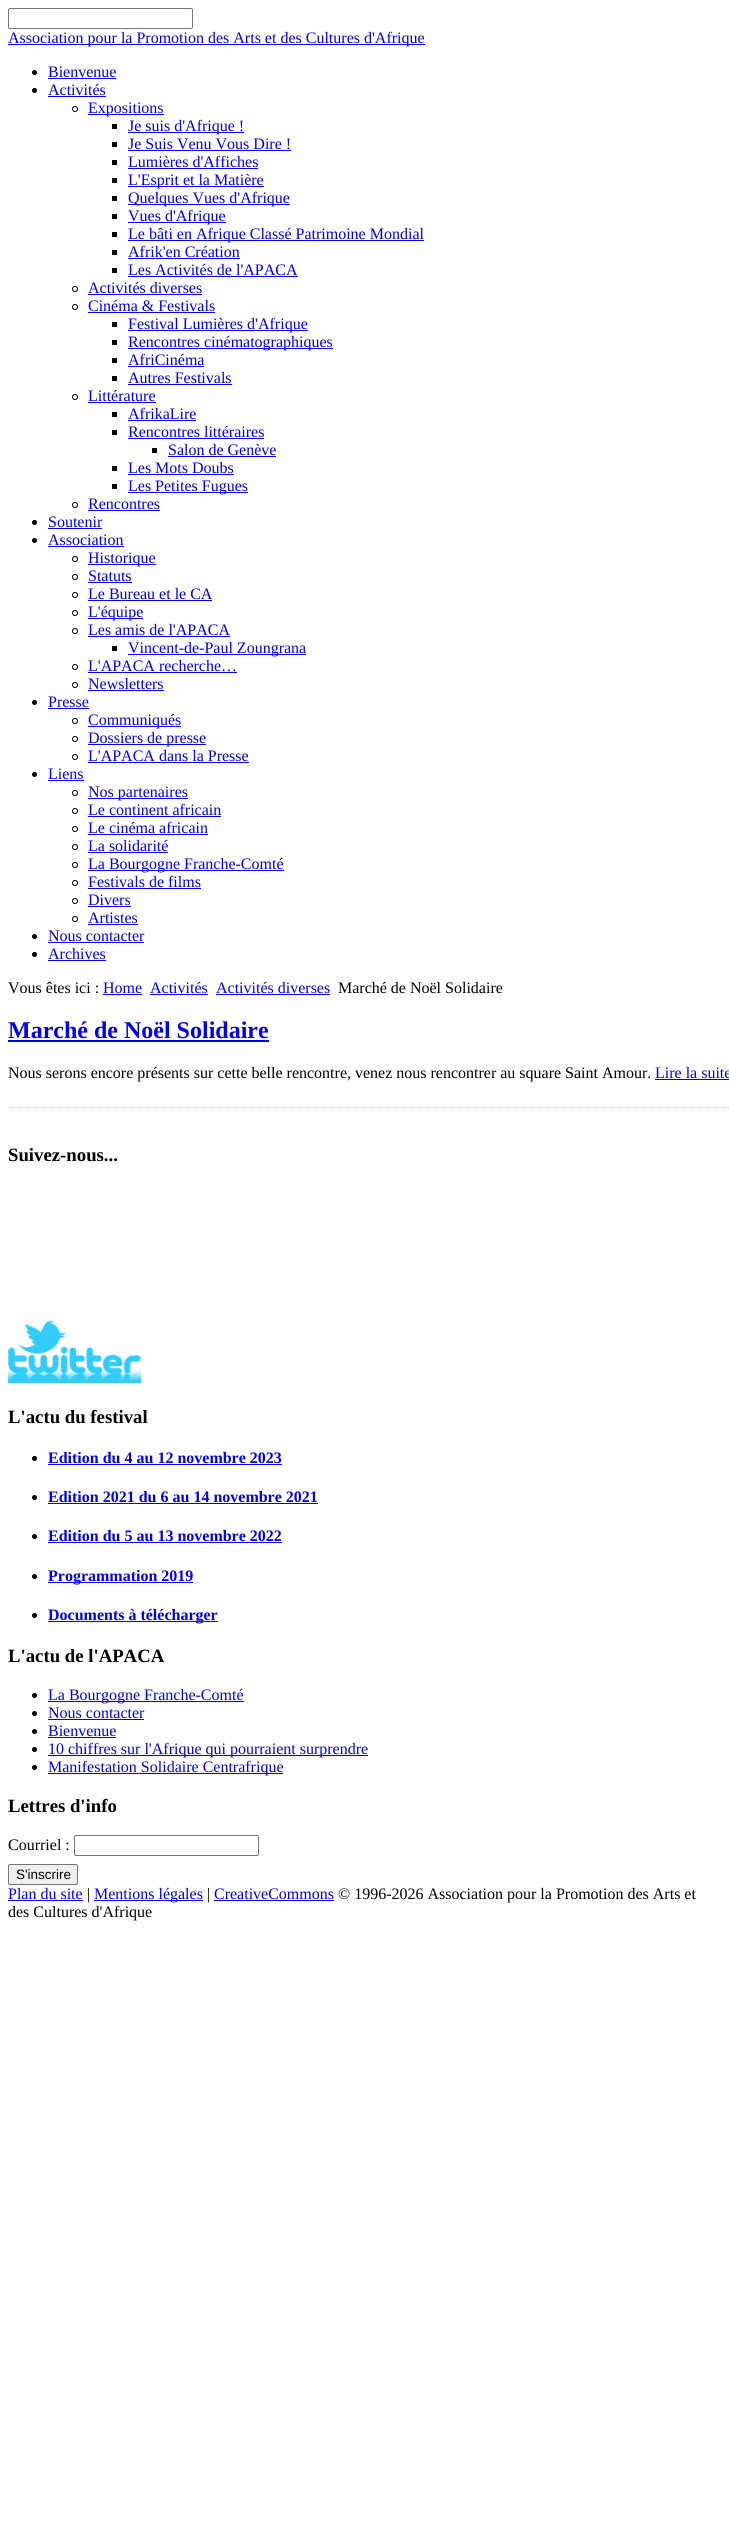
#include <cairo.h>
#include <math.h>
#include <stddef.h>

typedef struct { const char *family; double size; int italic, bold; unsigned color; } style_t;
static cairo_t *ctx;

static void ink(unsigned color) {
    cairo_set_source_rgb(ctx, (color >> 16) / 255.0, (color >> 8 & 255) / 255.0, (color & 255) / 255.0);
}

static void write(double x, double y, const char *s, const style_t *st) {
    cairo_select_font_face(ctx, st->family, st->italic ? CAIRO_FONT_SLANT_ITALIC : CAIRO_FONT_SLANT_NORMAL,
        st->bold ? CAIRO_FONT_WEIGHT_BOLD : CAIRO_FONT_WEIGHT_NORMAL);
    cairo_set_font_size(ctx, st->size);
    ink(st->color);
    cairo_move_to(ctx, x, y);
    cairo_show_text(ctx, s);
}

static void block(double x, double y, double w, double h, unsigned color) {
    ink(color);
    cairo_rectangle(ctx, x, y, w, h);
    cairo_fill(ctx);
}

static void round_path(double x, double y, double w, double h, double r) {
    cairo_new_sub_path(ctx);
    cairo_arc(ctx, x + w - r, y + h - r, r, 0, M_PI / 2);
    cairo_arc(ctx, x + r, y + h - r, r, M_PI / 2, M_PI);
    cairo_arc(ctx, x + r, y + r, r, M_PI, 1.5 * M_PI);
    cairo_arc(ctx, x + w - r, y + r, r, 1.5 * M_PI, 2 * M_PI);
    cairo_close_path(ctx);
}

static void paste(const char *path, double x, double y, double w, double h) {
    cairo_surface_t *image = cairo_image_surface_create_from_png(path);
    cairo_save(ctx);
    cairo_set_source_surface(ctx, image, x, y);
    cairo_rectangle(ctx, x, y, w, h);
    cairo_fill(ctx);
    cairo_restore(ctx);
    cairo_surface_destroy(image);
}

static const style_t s1 = {"Liberation Serif", 16, 0, 0, 0x0000ee};
static const style_t s2 = {"Liberation Serif", 16, 0, 0, 0x000000};
static const style_t s3 = {"Liberation Serif", 24, 0, 1, 0x0000ee};
static const style_t s4 = {"Liberation Serif", 18.75, 0, 1, 0x000000};
static const style_t s5 = {"Liberation Serif", 16, 0, 1, 0x0000ee};
static const style_t s6 = {"Liberation Sans", 13.5, 0, 0, 0x000000};

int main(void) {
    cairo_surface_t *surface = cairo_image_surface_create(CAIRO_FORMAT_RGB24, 729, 2524);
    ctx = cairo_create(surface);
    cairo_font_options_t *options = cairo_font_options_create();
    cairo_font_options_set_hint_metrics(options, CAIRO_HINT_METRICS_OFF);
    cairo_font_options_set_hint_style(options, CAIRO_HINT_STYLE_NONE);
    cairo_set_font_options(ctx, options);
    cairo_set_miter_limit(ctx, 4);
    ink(0xffffff);
    cairo_paint(ctx);
    round_path(8.5, 8.5, 184, 20, 1.5);
    ink(0x767676);
    cairo_set_line_width(ctx, 1);
    cairo_stroke(ctx);
    block(8, 44, 417, 1, 0x0000ee);
    write(8, 43, "Association pour la Promotion des Arts et des Cultures d'Afrique", &s1);
    ink(0x000000);
    cairo_new_path(ctx);
    cairo_arc(ctx, 34.5, 72.5, 2.5, 0, 2 * M_PI);
    cairo_fill(ctx);
    write(48, 77, "Bienvenue", &s1);
    block(48, 78, 68, 1, 0x0000ee);
    ink(0x000000);
    cairo_new_path(ctx);
    cairo_arc(ctx, 34.5, 90.5, 2.5, 0, 2 * M_PI);
    cairo_fill(ctx);
    write(48, 95, "Activités", &s1);
    block(48, 96, 58, 1, 0x0000ee);
    cairo_new_path(ctx);
    cairo_arc(ctx, 75, 109, 2.5, 0, 2 * M_PI);
    ink(0x000000);
    cairo_stroke(ctx);
    block(88, 114, 76, 1, 0x0000ee);
    write(88, 113, "Expositions", &s1);
    block(112, 124, 5, 5, 0x000000);
    block(128, 132, 116, 1, 0x0000ee);
    write(128, 131, "Je suis d'Afrique !", &s1);
    block(112, 142, 5, 5, 0x000000);
    write(128, 149, "Je Suis Venu Vous Dire !", &s1);
    block(128, 150, 163, 1, 0x0000ee);
    block(112, 160, 5, 5, 0x000000);
    write(128, 167, "Lumières d'Affiches", &s1);
    block(128, 168, 130, 1, 0x0000ee);
    block(112, 178, 5, 5, 0x000000);
    block(128, 186, 136, 1, 0x0000ee);
    write(128, 185, "L'Esprit et la Matière", &s1);
    block(112, 196, 5, 5, 0x000000);
    block(128, 204, 162, 1, 0x0000ee);
    write(128, 203, "Quelques Vues d'Afrique", &s1);
    block(112, 214, 5, 5, 0x000000);
    block(128, 222, 98, 1, 0x0000ee);
    write(128, 221, "Vues d'Afrique", &s1);
    block(112, 232, 5, 5, 0x000000);
    block(128, 240, 296, 1, 0x0000ee);
    write(128, 239, "Le bâti en Afrique Classé Patrimoine Mondial", &s1);
    block(112, 250, 5, 5, 0x000000);
    write(128, 257, "Afrik'en Création", &s1);
    block(128, 258, 112, 1, 0x0000ee);
    block(112, 268, 5, 5, 0x000000);
    write(128, 275, "Les Activités de l'APACA", &s1);
    block(128, 276, 170, 1, 0x0000ee);
    cairo_new_path(ctx);
    cairo_arc(ctx, 75, 289, 2.5, 0, 2 * M_PI);
    ink(0x000000);
    cairo_stroke(ctx);
    write(88, 293, "Activités diverses", &s1);
    block(88, 294, 114, 1, 0x0000ee);
    cairo_new_path(ctx);
    cairo_arc(ctx, 75, 307, 2.5, 0, 2 * M_PI);
    ink(0x000000);
    cairo_stroke(ctx);
    write(88, 311, "Cinéma & Festivals", &s1);
    block(88, 312, 127, 1, 0x0000ee);
    block(112, 322, 5, 5, 0x000000);
    block(128, 330, 180, 1, 0x0000ee);
    write(128, 329, "Festival Lumières d'Afrique", &s1);
    block(112, 340, 5, 5, 0x000000);
    block(128, 348, 205, 1, 0x0000ee);
    write(128, 347, "Rencontres cinématographiques", &s1);
    block(112, 358, 5, 5, 0x000000);
    write(128, 365, "AfriCinéma", &s1);
    block(128, 366, 76, 1, 0x0000ee);
    block(112, 376, 5, 5, 0x000000);
    write(128, 383, "Autres Festivals", &s1);
    block(128, 384, 104, 1, 0x0000ee);
    cairo_new_path(ctx);
    cairo_arc(ctx, 75, 397, 2.5, 0, 2 * M_PI);
    ink(0x000000);
    cairo_stroke(ctx);
    write(88, 401, "Littérature", &s1);
    block(88, 402, 68, 1, 0x0000ee);
    block(112, 412, 5, 5, 0x000000);
    write(128, 419, "AfrikaLire", &s1);
    block(128, 420, 68, 1, 0x0000ee);
    block(112, 430, 5, 5, 0x000000);
    write(128, 437, "Rencontres littéraires", &s1);
    block(128, 438, 136, 1, 0x0000ee);
    block(152, 448, 5, 5, 0x000000);
    write(168, 455, "Salon de Genève", &s1);
    block(168, 456, 108, 1, 0x0000ee);
    block(112, 466, 5, 5, 0x000000);
    write(128, 473, "Les Mots Doubs", &s1);
    block(128, 474, 106, 1, 0x0000ee);
    block(112, 484, 5, 5, 0x000000);
    block(128, 492, 120, 1, 0x0000ee);
    write(128, 491, "Les Petites Fugues", &s1);
    cairo_new_path(ctx);
    cairo_arc(ctx, 75, 505, 2.5, 0, 2 * M_PI);
    ink(0x000000);
    cairo_stroke(ctx);
    write(88, 509, "Rencontres", &s1);
    block(88, 510, 72, 1, 0x0000ee);
    ink(0x000000);
    cairo_new_path(ctx);
    cairo_arc(ctx, 34.5, 522.5, 2.5, 0, 2 * M_PI);
    cairo_fill(ctx);
    write(48, 527, "Soutenir", &s1);
    block(48, 528, 54, 1, 0x0000ee);
    ink(0x000000);
    cairo_new_path(ctx);
    cairo_arc(ctx, 34.5, 540.5, 2.5, 0, 2 * M_PI);
    cairo_fill(ctx);
    write(48, 545, "Association", &s1);
    block(48, 546, 76, 1, 0x0000ee);
    cairo_new_path(ctx);
    cairo_arc(ctx, 75, 559, 2.5, 0, 2 * M_PI);
    ink(0x000000);
    cairo_stroke(ctx);
    block(88, 564, 68, 1, 0x0000ee);
    write(88, 563, "Historique", &s1);
    cairo_new_path(ctx);
    cairo_arc(ctx, 75, 577, 2.5, 0, 2 * M_PI);
    ink(0x000000);
    cairo_stroke(ctx);
    write(88, 581, "Statuts", &s1);
    block(88, 582, 44, 1, 0x0000ee);
    cairo_new_path(ctx);
    cairo_arc(ctx, 75, 595, 2.5, 0, 2 * M_PI);
    ink(0x000000);
    cairo_stroke(ctx);
    write(88, 599, "Le Bureau et le CA", &s1);
    block(88, 600, 124, 1, 0x0000ee);
    cairo_new_path(ctx);
    cairo_arc(ctx, 75, 613, 2.5, 0, 2 * M_PI);
    ink(0x000000);
    cairo_stroke(ctx);
    block(88, 618, 55, 1, 0x0000ee);
    write(88, 617, "L'équipe", &s1);
    cairo_new_path(ctx);
    cairo_arc(ctx, 75, 631, 2.5, 0, 2 * M_PI);
    ink(0x000000);
    cairo_stroke(ctx);
    write(88, 635, "Les amis de l'APACA", &s1);
    block(88, 636, 142, 1, 0x0000ee);
    block(112, 646, 5, 5, 0x000000);
    block(128, 654, 178, 1, 0x0000ee);
    write(128, 653, "Vincent-de-Paul Zoungrana", &s1);
    cairo_new_path(ctx);
    cairo_arc(ctx, 75, 667, 2.5, 0, 2 * M_PI);
    ink(0x000000);
    cairo_stroke(ctx);
    write(88, 671, "L'APACA recherche…", &s1);
    block(88, 672, 149, 1, 0x0000ee);
    cairo_new_path(ctx);
    cairo_arc(ctx, 75, 685, 2.5, 0, 2 * M_PI);
    ink(0x000000);
    cairo_stroke(ctx);
    write(88, 689, "Newsletters", &s1);
    block(88, 690, 76, 1, 0x0000ee);
    ink(0x000000);
    cairo_new_path(ctx);
    cairo_arc(ctx, 34.5, 702.5, 2.5, 0, 2 * M_PI);
    cairo_fill(ctx);
    write(48, 707, "Presse", &s1);
    block(48, 708, 41, 1, 0x0000ee);
    cairo_new_path(ctx);
    cairo_arc(ctx, 75, 721, 2.5, 0, 2 * M_PI);
    ink(0x000000);
    cairo_stroke(ctx);
    block(88, 726, 93, 1, 0x0000ee);
    write(88, 725, "Communiqués", &s1);
    cairo_new_path(ctx);
    cairo_arc(ctx, 75, 739, 2.5, 0, 2 * M_PI);
    ink(0x000000);
    cairo_stroke(ctx);
    block(88, 744, 118, 1, 0x0000ee);
    write(88, 743, "Dossiers de presse", &s1);
    cairo_new_path(ctx);
    cairo_arc(ctx, 75, 757, 2.5, 0, 2 * M_PI);
    ink(0x000000);
    cairo_stroke(ctx);
    write(88, 761, "L'APACA dans la Presse", &s1);
    block(88, 762, 161, 1, 0x0000ee);
    ink(0x000000);
    cairo_new_path(ctx);
    cairo_arc(ctx, 34.5, 774.5, 2.5, 0, 2 * M_PI);
    cairo_fill(ctx);
    write(48, 779, "Liens", &s1);
    block(48, 780, 36, 1, 0x0000ee);
    cairo_new_path(ctx);
    cairo_arc(ctx, 75, 793, 2.5, 0, 2 * M_PI);
    ink(0x000000);
    cairo_stroke(ctx);
    block(88, 798, 100, 1, 0x0000ee);
    write(88, 797, "Nos partenaires", &s1);
    cairo_new_path(ctx);
    cairo_arc(ctx, 75, 811, 2.5, 0, 2 * M_PI);
    ink(0x000000);
    cairo_stroke(ctx);
    write(88, 815, "Le continent africain", &s1);
    block(88, 816, 133, 1, 0x0000ee);
    cairo_new_path(ctx);
    cairo_arc(ctx, 75, 829, 2.5, 0, 2 * M_PI);
    ink(0x000000);
    cairo_stroke(ctx);
    write(88, 833, "Le cinéma africain", &s1);
    block(88, 834, 120, 1, 0x0000ee);
    cairo_new_path(ctx);
    cairo_arc(ctx, 75, 847, 2.5, 0, 2 * M_PI);
    ink(0x000000);
    cairo_stroke(ctx);
    write(88, 851, "La solidarité", &s1);
    block(88, 852, 80, 1, 0x0000ee);
    cairo_new_path(ctx);
    cairo_arc(ctx, 75, 865, 2.5, 0, 2 * M_PI);
    ink(0x000000);
    cairo_stroke(ctx);
    block(88, 870, 196, 1, 0x0000ee);
    write(88, 869, "La Bourgogne Franche-Comté", &s1);
    cairo_new_path(ctx);
    cairo_arc(ctx, 75, 883, 2.5, 0, 2 * M_PI);
    ink(0x000000);
    cairo_stroke(ctx);
    write(88, 887, "Festivals de films", &s1);
    block(88, 888, 113, 1, 0x0000ee);
    cairo_new_path(ctx);
    cairo_arc(ctx, 75, 901, 2.5, 0, 2 * M_PI);
    ink(0x000000);
    cairo_stroke(ctx);
    write(88, 905, "Divers", &s1);
    block(88, 906, 43, 1, 0x0000ee);
    cairo_new_path(ctx);
    cairo_arc(ctx, 75, 919, 2.5, 0, 2 * M_PI);
    ink(0x000000);
    cairo_stroke(ctx);
    write(88, 923, "Artistes", &s1);
    block(88, 924, 50, 1, 0x0000ee);
    ink(0x000000);
    cairo_new_path(ctx);
    cairo_arc(ctx, 34.5, 936.5, 2.5, 0, 2 * M_PI);
    cairo_fill(ctx);
    write(48, 941, "Nous contacter", &s1);
    block(48, 942, 96, 1, 0x0000ee);
    ink(0x000000);
    cairo_new_path(ctx);
    cairo_arc(ctx, 34.5, 954.5, 2.5, 0, 2 * M_PI);
    cairo_fill(ctx);
    write(48, 959, "Archives", &s1);
    block(48, 960, 58, 1, 0x0000ee);
    write(8, 993, "Vous êtes ici :", &s2);
    write(103, 993, "Home", &s1);
    block(103, 994, 39, 1, 0x0000ee);
    write(150, 993, "Activités", &s1);
    block(150, 994, 58, 1, 0x0000ee);
    write(216, 993, "Activités diverses", &s1);
    block(216, 994, 114, 1, 0x0000ee);
    write(338, 993, "Marché de Noël Solidaire", &s2);
    write(8, 1038, "Marché de Noël Solidaire", &s3);
    block(8, 1040, 261, 2, 0x0000ee);
    write(8, 1078, "Nous serons encore présents sur cette belle rencontre, venez nous rencontrer au square Saint Amour.", &s2);
    write(655, 1078, "Lire la suite", &s1);
    block(655, 1079, 74, 1, 0x0000ee);
    cairo_new_path(ctx);
    cairo_move_to(ctx, 8, 1107.5);
    cairo_line_to(ctx, 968, 1107.5);
    ink(0xcccccc);
    cairo_set_dash(ctx, (double[]){1, 1}, 2, 0);
    cairo_stroke(ctx);
    write(8, 1161, "Suivez-nous...", &s4);
    paste("pic1.png", 8, 1320, 133, 63);
    write(8, 1423, "L'actu du festival", &s4);
    cairo_new_path(ctx);
    cairo_arc(ctx, 34.5, 1458.5, 2.5, 0, 2 * M_PI);
    cairo_fill(ctx);
    write(48, 1463, "Edition du 4 au 12 novembre 2023", &s5);
    block(48, 1464, 234, 1, 0x0000ee);
    ink(0x000000);
    cairo_new_path(ctx);
    cairo_arc(ctx, 34.5, 1497.5, 2.5, 0, 2 * M_PI);
    cairo_fill(ctx);
    write(48, 1502, "Edition 2021 du 6 au 14 novembre 2021", &s5);
    block(48, 1503, 270, 1, 0x0000ee);
    ink(0x000000);
    cairo_new_path(ctx);
    cairo_arc(ctx, 34.5, 1536.5, 2.5, 0, 2 * M_PI);
    cairo_fill(ctx);
    write(48, 1541, "Edition du 5 au 13 novembre 2022", &s5);
    block(48, 1542, 234, 1, 0x0000ee);
    ink(0x000000);
    cairo_new_path(ctx);
    cairo_arc(ctx, 34.5, 1576.5, 2.5, 0, 2 * M_PI);
    cairo_fill(ctx);
    block(48, 1582, 145, 1, 0x0000ee);
    write(48, 1581, "Programmation 2019", &s5);
    ink(0x000000);
    cairo_new_path(ctx);
    cairo_arc(ctx, 34.5, 1615.5, 2.5, 0, 2 * M_PI);
    cairo_fill(ctx);
    block(48, 1621, 170, 1, 0x0000ee);
    write(48, 1620, "Documents à télécharger", &s5);
    write(8, 1662, "L'actu de l'APACA", &s4);
    cairo_new_path(ctx);
    cairo_arc(ctx, 34.5, 1695.5, 2.5, 0, 2 * M_PI);
    cairo_fill(ctx);
    block(48, 1701, 196, 1, 0x0000ee);
    write(48, 1700, "La Bourgogne Franche-Comté", &s1);
    ink(0x000000);
    cairo_new_path(ctx);
    cairo_arc(ctx, 34.5, 1713.5, 2.5, 0, 2 * M_PI);
    cairo_fill(ctx);
    write(48, 1718, "Nous contacter", &s1);
    block(48, 1719, 96, 1, 0x0000ee);
    ink(0x000000);
    cairo_new_path(ctx);
    cairo_arc(ctx, 34.5, 1731.5, 2.5, 0, 2 * M_PI);
    cairo_fill(ctx);
    write(48, 1736, "Bienvenue", &s1);
    block(48, 1737, 68, 1, 0x0000ee);
    ink(0x000000);
    cairo_new_path(ctx);
    cairo_arc(ctx, 34.5, 1749.5, 2.5, 0, 2 * M_PI);
    cairo_fill(ctx);
    block(48, 1755, 320, 1, 0x0000ee);
    write(48, 1754, "10 chiffres sur l'Afrique qui pourraient surprendre", &s1);
    ink(0x000000);
    cairo_new_path(ctx);
    cairo_arc(ctx, 34.5, 1767.5, 2.5, 0, 2 * M_PI);
    cairo_fill(ctx);
    block(48, 1773, 235, 1, 0x0000ee);
    write(48, 1772, "Manifestation Solidaire Centrafrique", &s1);
    write(8, 1812, "Lettres d'info", &s4);
    write(8, 1850, "Courriel :", &s2);
    round_path(74.5, 1835.5, 184, 20, 1.5);
    ink(0x767676);
    cairo_set_dash(ctx, NULL, 0, 0);
    cairo_stroke(ctx);
    ink(0xefefef);
    round_path(8.5, 1864.5, 69, 20, 1.5);
    cairo_fill_preserve(ctx);
    ink(0x767676);
    cairo_stroke(ctx);
    write(16, 1879, "S'inscrire", &s6);
    write(8, 1899, "Plan du site", &s1);
    block(8, 1900, 75, 1, 0x0000ee);
    write(87, 1899, "|", &s2);
    block(94, 1900, 109, 1, 0x0000ee);
    write(94, 1899, "Mentions légales", &s1);
    write(207, 1899, "|", &s2);
    write(214, 1899, "CreativeCommons", &s1);
    block(214, 1900, 120, 1, 0x0000ee);
    write(338, 1899, "© 1996-2026 Association pour la Promotion des Arts et", &s2);
    write(8, 1917, "des Cultures d'Afrique", &s2);
    cairo_surface_write_to_png(surface, "screenshot.png");
    cairo_font_options_destroy(options);
    cairo_destroy(ctx);
    cairo_surface_destroy(surface);
    return 0;
}
